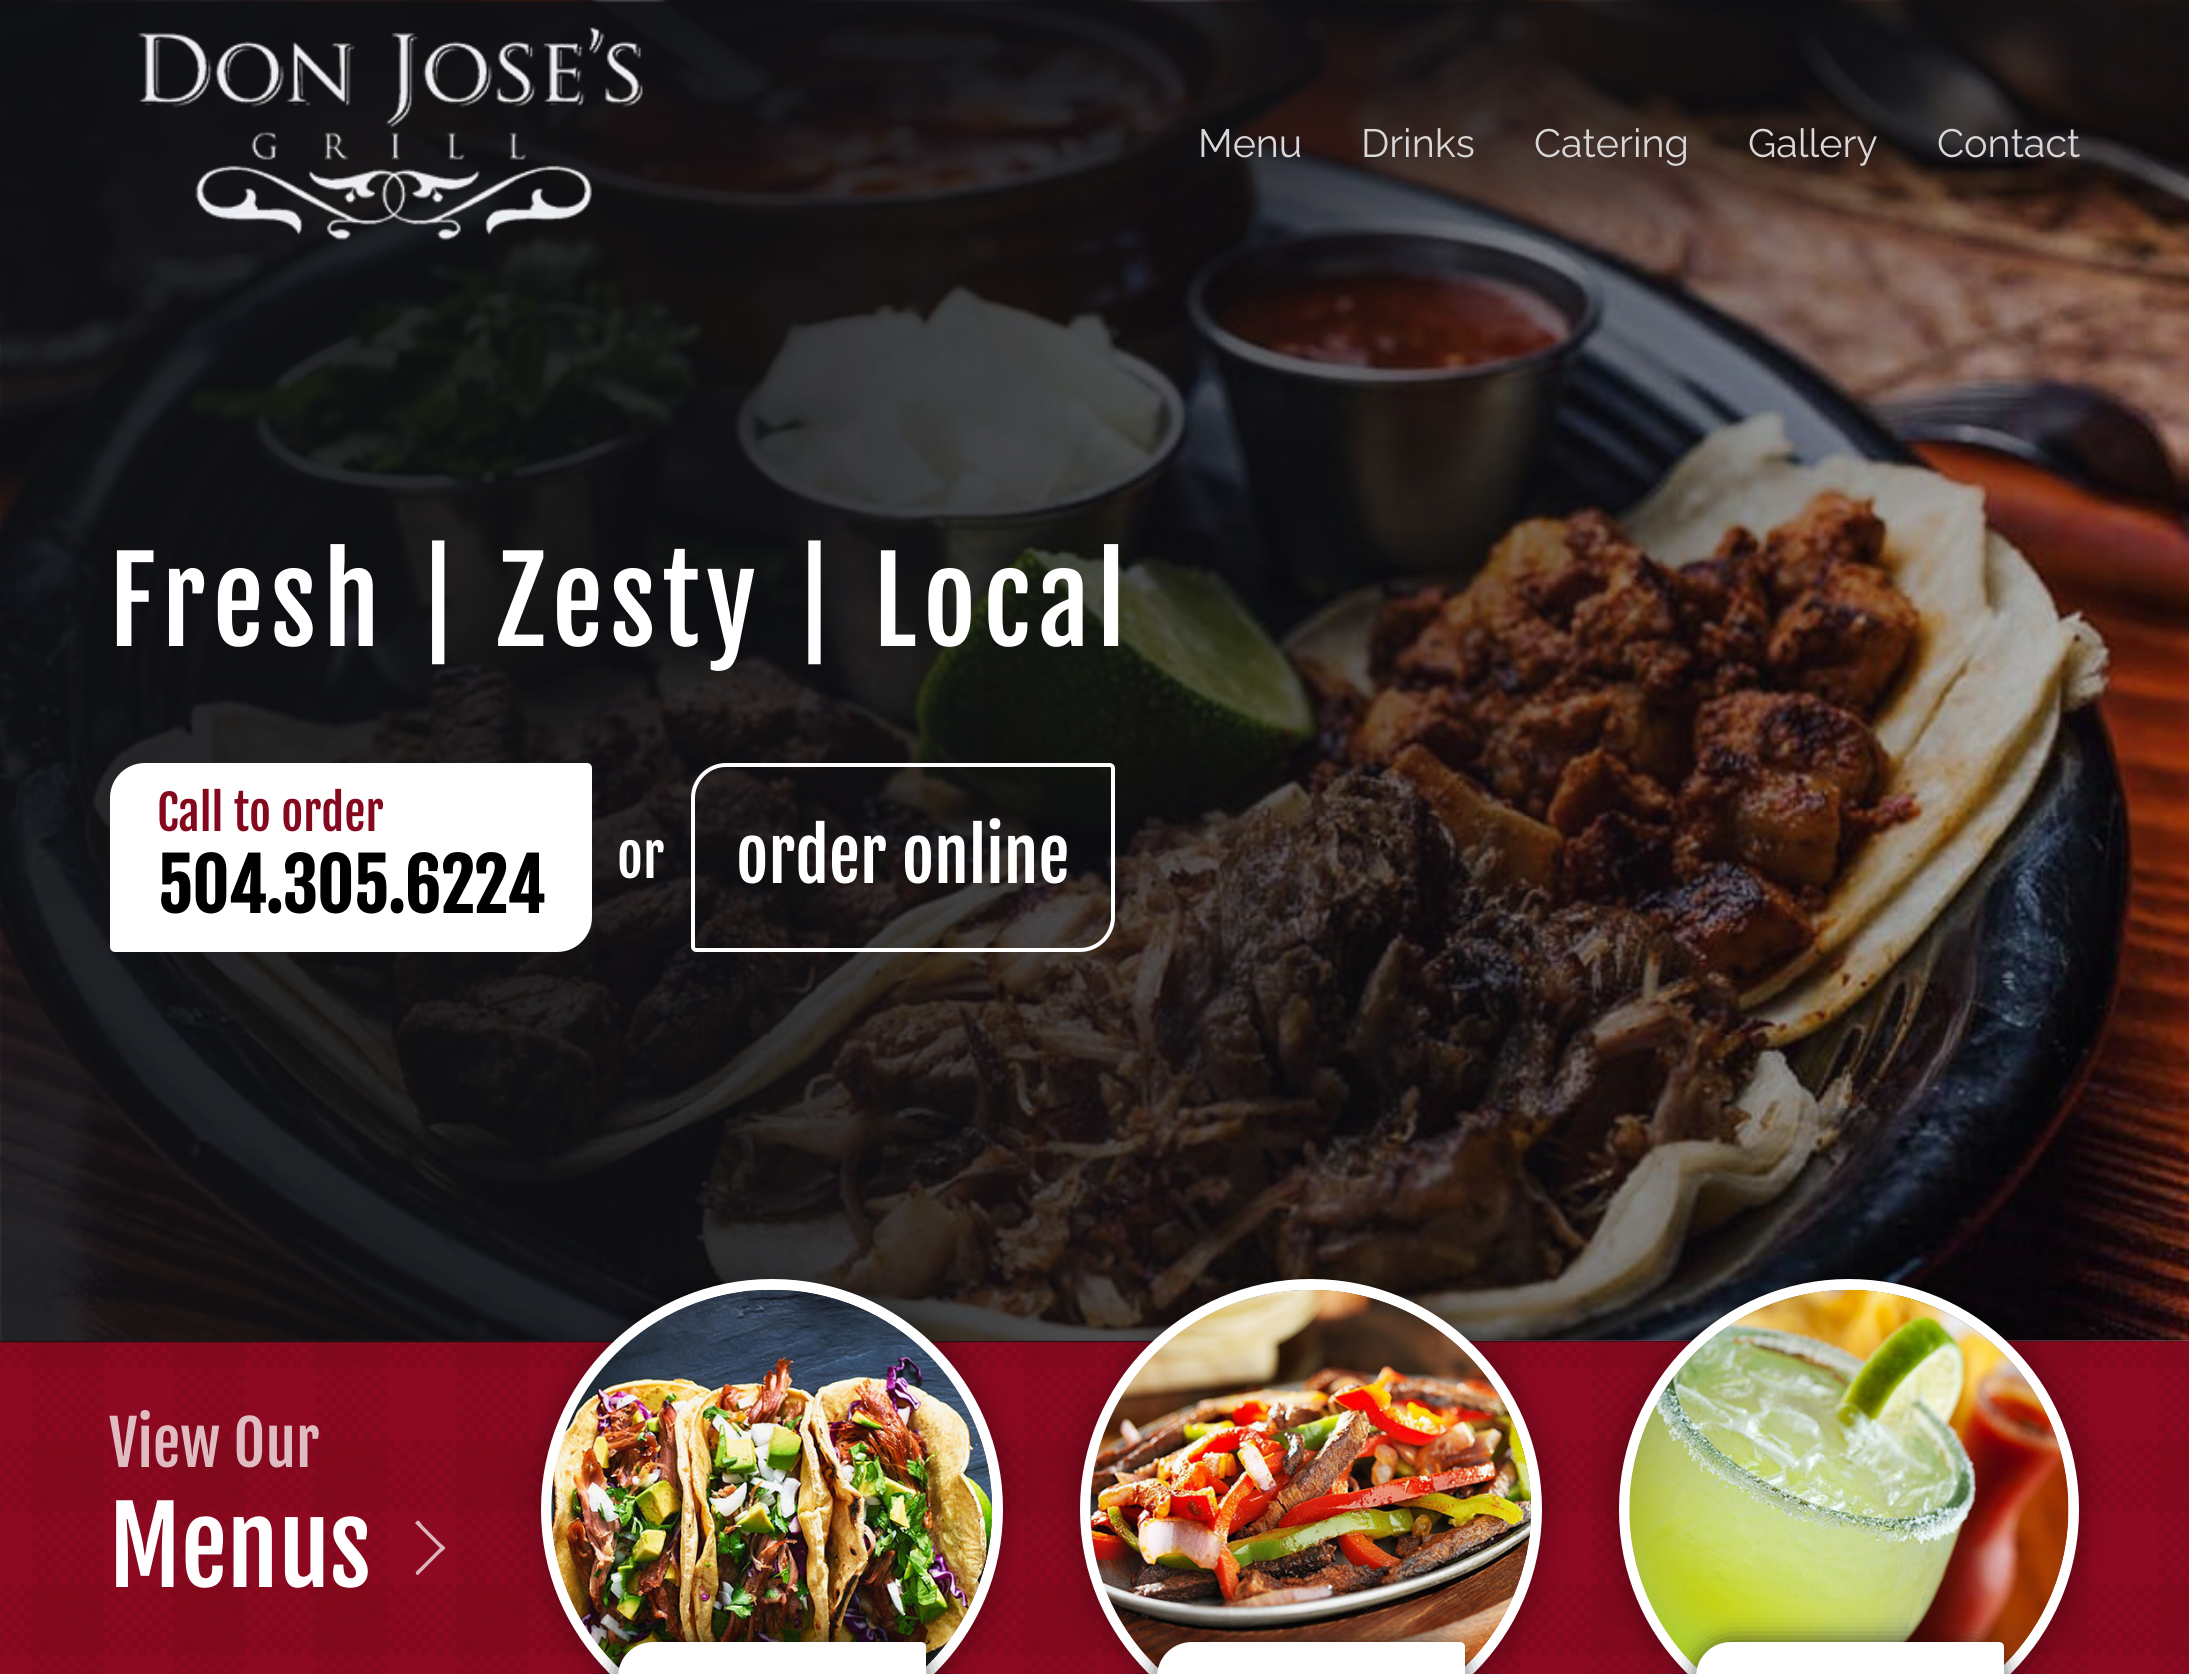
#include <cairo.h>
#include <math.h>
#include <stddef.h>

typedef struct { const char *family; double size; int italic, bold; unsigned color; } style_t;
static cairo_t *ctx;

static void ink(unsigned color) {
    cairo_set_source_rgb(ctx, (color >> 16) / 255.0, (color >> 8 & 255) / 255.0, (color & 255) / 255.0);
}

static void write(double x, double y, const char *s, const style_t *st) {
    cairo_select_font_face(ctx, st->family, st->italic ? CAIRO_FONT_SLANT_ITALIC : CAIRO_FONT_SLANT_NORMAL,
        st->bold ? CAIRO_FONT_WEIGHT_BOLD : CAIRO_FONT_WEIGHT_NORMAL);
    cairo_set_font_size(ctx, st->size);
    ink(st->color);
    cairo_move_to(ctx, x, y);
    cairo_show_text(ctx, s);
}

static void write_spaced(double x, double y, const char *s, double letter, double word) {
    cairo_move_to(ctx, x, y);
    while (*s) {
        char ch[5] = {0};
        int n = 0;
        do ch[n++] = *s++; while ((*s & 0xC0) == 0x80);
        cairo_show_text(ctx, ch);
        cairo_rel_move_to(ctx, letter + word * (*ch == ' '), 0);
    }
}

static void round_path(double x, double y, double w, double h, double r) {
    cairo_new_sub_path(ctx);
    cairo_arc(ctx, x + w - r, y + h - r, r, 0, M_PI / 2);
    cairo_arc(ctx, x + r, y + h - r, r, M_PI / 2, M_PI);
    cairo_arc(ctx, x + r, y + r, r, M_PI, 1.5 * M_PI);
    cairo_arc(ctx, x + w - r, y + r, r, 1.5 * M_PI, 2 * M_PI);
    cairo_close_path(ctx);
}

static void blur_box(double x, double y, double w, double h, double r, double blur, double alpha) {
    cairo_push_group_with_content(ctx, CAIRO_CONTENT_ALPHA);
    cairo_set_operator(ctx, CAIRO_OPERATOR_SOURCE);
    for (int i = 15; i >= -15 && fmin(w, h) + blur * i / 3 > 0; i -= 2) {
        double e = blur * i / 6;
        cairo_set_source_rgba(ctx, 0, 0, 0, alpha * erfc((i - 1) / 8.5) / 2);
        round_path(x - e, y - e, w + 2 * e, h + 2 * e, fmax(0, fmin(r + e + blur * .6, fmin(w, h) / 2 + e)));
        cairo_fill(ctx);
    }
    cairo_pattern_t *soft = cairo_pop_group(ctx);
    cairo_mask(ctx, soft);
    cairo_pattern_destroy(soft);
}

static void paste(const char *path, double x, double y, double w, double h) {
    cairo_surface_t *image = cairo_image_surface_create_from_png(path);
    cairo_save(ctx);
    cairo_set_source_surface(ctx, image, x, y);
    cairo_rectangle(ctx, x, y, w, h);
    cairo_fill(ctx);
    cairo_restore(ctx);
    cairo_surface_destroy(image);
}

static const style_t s1 = {"Raleway Thin", 39.5, 0, 0, 0xd9d7d8};
static const style_t s2 = {"Fjalla One", 47.5, 0, 0, 0x85091e};
static const style_t s3 = {"Fjalla One", 70, 0, 1, 0x000000};
static const style_t s4 = {"Fjalla One", 56, 0, 0, 0xffffff};
static const style_t s5 = {"Fjalla One", 70, 0, 0, 0xffffff};
static const style_t s6 = {"Fjalla One", 61.5, 0, 0, 0xdfbcc2};
static const style_t s7 = {"Fjalla One", 104, 0, 0, 0xffffff};

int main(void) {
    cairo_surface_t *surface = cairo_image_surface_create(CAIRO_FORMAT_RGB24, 2189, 1674);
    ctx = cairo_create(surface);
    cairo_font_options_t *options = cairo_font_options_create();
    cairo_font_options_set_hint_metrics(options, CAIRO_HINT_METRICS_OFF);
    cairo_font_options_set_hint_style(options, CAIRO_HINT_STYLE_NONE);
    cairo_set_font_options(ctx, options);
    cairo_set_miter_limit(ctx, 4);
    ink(0xffffff);
    cairo_paint(ctx);
    paste("pic5.png", 0, 1340, 2189, 334);
    paste("pic2.png", 0, 0, 2189, 1341);
    paste("pic3.png", 0, 0, 2189, 242);
    paste("pic4.png", 0, 1, 2189, 1342);
    paste("pic1.png", 138, 27, 505, 214);
    write(1198, 157, "Menu", &s1);
    write(1361, 157, "Drinks", &s1);
    write(1534, 157, "Catering", &s1);
    write(1748, 157, "Gallery", &s1);
    write(1937, 157, "Contact", &s1);
    cairo_select_font_face(ctx, "Fjalla One", CAIRO_FONT_SLANT_NORMAL, CAIRO_FONT_WEIGHT_NORMAL);
    cairo_set_font_size(ctx, 114.75);
    ink(0xffffff);
    write_spaced(109, 646, "Fresh | Zesty | Local", 7, 0);
    cairo_new_path(ctx);
    cairo_move_to(ctx, 145, 765.5);
    cairo_line_to(ctx, 587, 765.5);
    cairo_curve_to(ctx, 588.5, 765.5, 589.5, 766.5, 589.5, 768);
    cairo_line_to(ctx, 589.5, 917);
    cairo_curve_to(ctx, 589.5, 935, 575, 949.5, 557, 949.5);
    cairo_line_to(ctx, 115, 949.5);
    cairo_curve_to(ctx, 113.5, 949.5, 112.5, 948.5, 112.5, 947);
    cairo_line_to(ctx, 112.5, 798);
    cairo_curve_to(ctx, 112.5, 780, 127, 765.5, 145, 765.5);
    cairo_close_path(ctx);
    cairo_fill_preserve(ctx);
    cairo_set_line_width(ctx, 5);
    cairo_stroke(ctx);
    write(157, 831, "Call to order", &s2);
    write(157, 913, "504.305.6224", &s3);
    write(617, 878, "or", &s4);
    cairo_new_path(ctx);
    cairo_move_to(ctx, 726, 765);
    cairo_line_to(ctx, 1110, 765);
    cairo_curve_to(ctx, 1111.5, 765, 1113, 766.5, 1113, 768);
    cairo_line_to(ctx, 1113, 917);
    cairo_curve_to(ctx, 1113, 935, 1098, 950, 1080, 950);
    cairo_line_to(ctx, 696, 950);
    cairo_curve_to(ctx, 694.5, 950, 693, 948.5, 693, 947);
    cairo_line_to(ctx, 693, 798);
    cairo_curve_to(ctx, 693, 780, 708, 765, 726, 765);
    cairo_close_path(ctx);
    cairo_set_line_width(ctx, 4);
    cairo_stroke(ctx);
    write(736, 883, "order online", &s5);
    write(109, 1467, "View Our", &s6);
    write(109, 1587, "Menus", &s7);
    ink(0xddb5bc);
    cairo_new_path(ctx);
    cairo_move_to(ctx, 417, 1521);
    cairo_curve_to(ctx, 419, 1519, 421, 1524, 423, 1526);
    cairo_line_to(ctx, 440, 1543);
    cairo_curve_to(ctx, 447, 1549, 447, 1547, 440, 1553);
    cairo_line_to(ctx, 418, 1575);
    cairo_line_to(ctx, 417, 1575);
    cairo_curve_to(ctx, 414, 1572, 417, 1571, 420, 1568);
    cairo_line_to(ctx, 440, 1548);
    cairo_line_to(ctx, 416, 1524);
    cairo_curve_to(ctx, 415, 1524, 415, 1523, 416, 1522);
    cairo_close_path(ctx);
    cairo_fill(ctx);
    ink(0x000000);
    blur_box(541, 1279, 462, 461, 230.5, 16.5, 0.39);
    round_path(546.5, 1284.5, 451, 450, 225);
    ink(0xffffff);
    cairo_set_line_width(ctx, 11);
    cairo_stroke(ctx);
    paste("pic6.png", 551, 1289, 442, 380);
    ink(0x000000);
    blur_box(618, 1642, 308, 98, 35, 13, 0.68);
    ink(0xffffff);
    cairo_new_path(ctx);
    cairo_move_to(ctx, 653, 1642);
    cairo_line_to(ctx, 921, 1642);
    cairo_curve_to(ctx, 924, 1642, 926, 1644, 926, 1647);
    cairo_line_to(ctx, 926, 1674);
    cairo_curve_to(ctx, 926, 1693.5, 910.5, 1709, 891, 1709);
    cairo_line_to(ctx, 623, 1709);
    cairo_curve_to(ctx, 620, 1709, 618, 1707, 618, 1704);
    cairo_line_to(ctx, 618, 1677);
    cairo_curve_to(ctx, 618, 1657.5, 633.5, 1642, 653, 1642);
    cairo_close_path(ctx);
    cairo_fill(ctx);
    ink(0x000000);
    blur_box(1080, 1279, 462, 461, 230.5, 16.5, 0.39);
    round_path(1085.5, 1284.5, 451, 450, 225);
    ink(0xffffff);
    cairo_stroke(ctx);
    paste("pic7.png", 1090, 1289, 442, 380);
    ink(0x000000);
    blur_box(1157, 1642, 308, 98, 35, 13, 0.68);
    ink(0xffffff);
    cairo_new_path(ctx);
    cairo_move_to(ctx, 1192, 1642);
    cairo_line_to(ctx, 1460, 1642);
    cairo_curve_to(ctx, 1463, 1642, 1465, 1644, 1465, 1647);
    cairo_line_to(ctx, 1465, 1674);
    cairo_curve_to(ctx, 1465, 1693.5, 1449.5, 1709, 1430, 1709);
    cairo_line_to(ctx, 1162, 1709);
    cairo_curve_to(ctx, 1159, 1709, 1157, 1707, 1157, 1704);
    cairo_line_to(ctx, 1157, 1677);
    cairo_curve_to(ctx, 1157, 1657.5, 1172.5, 1642, 1192, 1642);
    cairo_close_path(ctx);
    cairo_fill(ctx);
    ink(0x000000);
    blur_box(1619, 1279, 460, 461, 230, 16.5, 0.39);
    round_path(1624.5, 1284.5, 449, 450, 224.5);
    ink(0xffffff);
    cairo_stroke(ctx);
    paste("pic8.png", 1629, 1289, 440, 380);
    ink(0x000000);
    blur_box(1696, 1642, 308, 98, 35, 13, 0.68);
    ink(0xffffff);
    cairo_new_path(ctx);
    cairo_move_to(ctx, 1731, 1642);
    cairo_line_to(ctx, 1999, 1642);
    cairo_curve_to(ctx, 2002, 1642, 2004, 1644, 2004, 1647);
    cairo_line_to(ctx, 2004, 1674);
    cairo_curve_to(ctx, 2004, 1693.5, 1988.5, 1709, 1969, 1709);
    cairo_line_to(ctx, 1701, 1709);
    cairo_curve_to(ctx, 1698, 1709, 1696, 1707, 1696, 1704);
    cairo_line_to(ctx, 1696, 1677);
    cairo_curve_to(ctx, 1696, 1657.5, 1711.5, 1642, 1731, 1642);
    cairo_close_path(ctx);
    cairo_fill(ctx);
    cairo_surface_write_to_png(surface, "screenshot.png");
    cairo_font_options_destroy(options);
    cairo_destroy(ctx);
    cairo_surface_destroy(surface);
    return 0;
}
